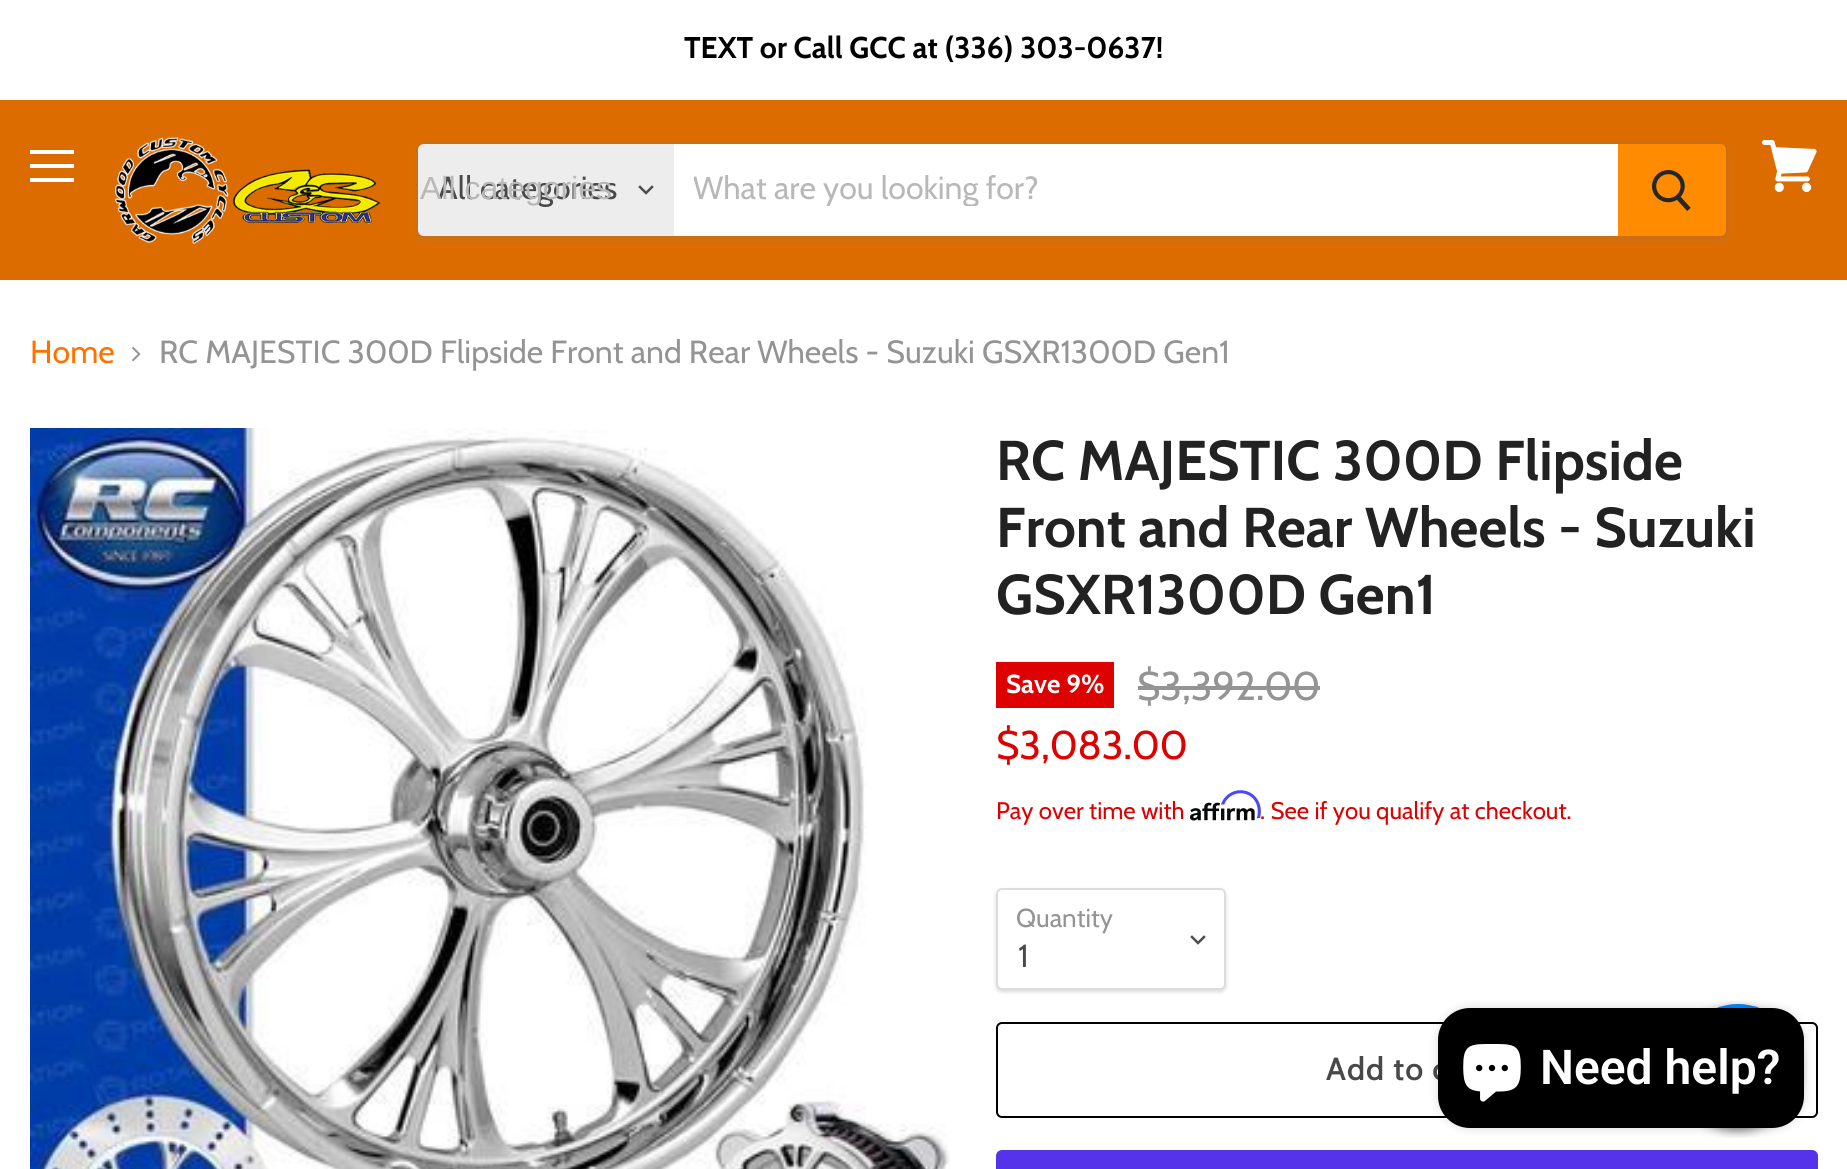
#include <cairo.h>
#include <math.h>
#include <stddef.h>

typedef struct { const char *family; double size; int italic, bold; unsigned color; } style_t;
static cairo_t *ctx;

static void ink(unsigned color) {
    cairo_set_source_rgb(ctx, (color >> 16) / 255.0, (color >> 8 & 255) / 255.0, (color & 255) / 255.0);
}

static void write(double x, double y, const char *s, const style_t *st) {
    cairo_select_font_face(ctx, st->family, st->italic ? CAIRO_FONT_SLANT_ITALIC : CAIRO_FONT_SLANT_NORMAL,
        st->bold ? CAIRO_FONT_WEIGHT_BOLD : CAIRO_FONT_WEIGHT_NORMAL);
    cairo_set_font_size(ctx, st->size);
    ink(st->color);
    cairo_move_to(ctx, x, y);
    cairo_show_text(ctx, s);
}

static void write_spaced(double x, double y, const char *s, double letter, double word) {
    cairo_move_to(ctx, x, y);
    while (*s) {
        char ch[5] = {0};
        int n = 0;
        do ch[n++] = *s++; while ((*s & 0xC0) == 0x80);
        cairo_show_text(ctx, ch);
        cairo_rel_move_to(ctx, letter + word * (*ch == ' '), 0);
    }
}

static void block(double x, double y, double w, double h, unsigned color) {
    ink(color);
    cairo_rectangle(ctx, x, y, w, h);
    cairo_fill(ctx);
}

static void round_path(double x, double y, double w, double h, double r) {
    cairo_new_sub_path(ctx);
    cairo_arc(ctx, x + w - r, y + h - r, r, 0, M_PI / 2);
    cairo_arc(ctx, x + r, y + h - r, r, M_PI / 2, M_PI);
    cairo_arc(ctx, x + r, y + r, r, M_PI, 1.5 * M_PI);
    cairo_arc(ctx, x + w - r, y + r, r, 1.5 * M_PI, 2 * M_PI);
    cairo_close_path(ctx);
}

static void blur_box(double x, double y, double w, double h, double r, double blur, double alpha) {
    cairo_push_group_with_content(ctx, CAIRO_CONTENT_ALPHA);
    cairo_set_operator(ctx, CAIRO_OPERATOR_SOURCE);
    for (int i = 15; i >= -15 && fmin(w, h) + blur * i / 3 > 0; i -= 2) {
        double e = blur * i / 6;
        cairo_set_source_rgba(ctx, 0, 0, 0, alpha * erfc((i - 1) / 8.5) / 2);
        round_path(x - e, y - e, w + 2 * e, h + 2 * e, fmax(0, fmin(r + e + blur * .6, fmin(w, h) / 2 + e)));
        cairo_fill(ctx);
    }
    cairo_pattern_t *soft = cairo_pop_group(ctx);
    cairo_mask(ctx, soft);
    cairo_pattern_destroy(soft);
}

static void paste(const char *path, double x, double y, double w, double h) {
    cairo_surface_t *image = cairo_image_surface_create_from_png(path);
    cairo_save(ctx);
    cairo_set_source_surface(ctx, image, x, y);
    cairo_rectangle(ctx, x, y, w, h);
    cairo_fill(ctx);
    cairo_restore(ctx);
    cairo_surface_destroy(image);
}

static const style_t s1 = {"Cabin", 30, 0, 1, 0x000000};
static const style_t s2 = {"Cabin", 32, 0, 0, 0x494949};
static const style_t s3 = {"Liberation Sans", 32, 0, 0, 0xb8b8b8};
static const style_t s4 = {"Cabin", 32, 0, 0, 0xb8b8b8};
static const style_t s5 = {"Cabin", 32, 0, 0, 0xff7200};
static const style_t s6 = {"Cabin", 32, 0, 0, 0x949494};
static const style_t s7 = {"Cabin", 56, 0, 1, 0x222222};
static const style_t s8 = {"Cabin", 40, 0, 0, 0x949494};
static const style_t s9 = {"Cabin", 40, 0, 0, 0xde0101};
static const style_t s10 = {"Cabin", 24, 0, 0, 0xde0101};
static const style_t s11 = {"Cabin", 26, 0, 1, 0xffffff};
static const style_t s12 = {"Cabin", 26, 0, 0, 0x949494};
static const style_t s13 = {"Roboto SemiBold", 48, 0, 0, 0xffffff};

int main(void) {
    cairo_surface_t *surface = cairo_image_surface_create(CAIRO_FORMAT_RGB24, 1847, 1169);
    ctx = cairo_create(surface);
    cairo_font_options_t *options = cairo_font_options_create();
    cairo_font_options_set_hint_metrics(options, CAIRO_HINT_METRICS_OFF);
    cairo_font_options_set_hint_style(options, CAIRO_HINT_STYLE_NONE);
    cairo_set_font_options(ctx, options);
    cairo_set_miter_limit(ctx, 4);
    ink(0xffffff);
    cairo_paint(ctx);
    write(684, 58, "TEXT or Call GCC at (336) 303-0637!", &s1);
    block(0, 100, 1847, 180, 0xdc6c00);
    block(30, 150, 44, 4, 0xffffff);
    block(30, 164, 44, 4, 0xffffff);
    block(30, 178, 44, 4, 0xffffff);
    paste("pic1.png", 1762, 140, 55, 52);
    paste("pic2.png", 115, 137, 266, 107);
    cairo_save(ctx);
    cairo_set_fill_rule(ctx, CAIRO_FILL_RULE_EVEN_ODD);
    cairo_new_path(ctx);
    cairo_move_to(ctx, 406, 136);
    cairo_line_to(ctx, 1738, 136);
    cairo_line_to(ctx, 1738, 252);
    cairo_line_to(ctx, 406, 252);
    cairo_close_path(ctx);
    cairo_move_to(ctx, 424, 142);
    cairo_line_to(ctx, 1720, 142);
    cairo_curve_to(ctx, 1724.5, 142, 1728, 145.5, 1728, 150);
    cairo_line_to(ctx, 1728, 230);
    cairo_curve_to(ctx, 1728, 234.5, 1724.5, 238, 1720, 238);
    cairo_line_to(ctx, 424, 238);
    cairo_curve_to(ctx, 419.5, 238, 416, 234.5, 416, 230);
    cairo_line_to(ctx, 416, 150);
    cairo_curve_to(ctx, 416, 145.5, 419.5, 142, 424, 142);
    cairo_close_path(ctx);
    cairo_clip(ctx);
    ink(0x808080);
    blur_box(416, 146, 1312, 96, 8, 3, 0.11);
    cairo_restore(ctx);
    round_path(417, 143, 1310, 94, 7);
    cairo_set_source_rgba(ctx, 0.502, 0.502, 0.502, 0.2);
    cairo_stroke(ctx);
    ink(0xededed);
    cairo_new_path(ctx);
    cairo_move_to(ctx, 424, 144);
    cairo_line_to(ctx, 674, 144);
    cairo_line_to(ctx, 674, 236);
    cairo_line_to(ctx, 424, 236);
    cairo_curve_to(ctx, 420.5, 236, 418, 233.5, 418, 230);
    cairo_line_to(ctx, 418, 150);
    cairo_curve_to(ctx, 418, 146.5, 420.5, 144, 424, 144);
    cairo_close_path(ctx);
    cairo_fill(ctx);
    write(438, 199, "All categories", &s2);
    write(420, 199, "All categories", &s3);
    cairo_new_path(ctx);
    cairo_move_to(ctx, 646, 193);
    cairo_line_to(ctx, 652, 187);
    cairo_move_to(ctx, 646, 193);
    cairo_line_to(ctx, 640, 187);
    ink(0x4d4d4d);
    cairo_set_line_width(ctx, 2.5);
    cairo_set_line_cap(ctx, CAIRO_LINE_CAP_SQUARE);
    cairo_stroke(ctx);
    block(674, 144, 944, 92, 0xffffff);
    cairo_save(ctx);
    cairo_rectangle(ctx, 694, 168, 904, 38);
    cairo_clip(ctx);
    write(693, 199, "What are you looking for?", &s4);
    cairo_restore(ctx);
    ink(0xff8b00);
    cairo_new_path(ctx);
    cairo_move_to(ctx, 1619, 145);
    cairo_line_to(ctx, 1720, 145);
    cairo_curve_to(ctx, 1723, 145, 1725, 147, 1725, 150);
    cairo_line_to(ctx, 1725, 230);
    cairo_curve_to(ctx, 1725, 233, 1723, 235, 1720, 235);
    cairo_line_to(ctx, 1619, 235);
    cairo_close_path(ctx);
    cairo_fill_preserve(ctx);
    cairo_set_line_width(ctx, 2);
    cairo_set_line_cap(ctx, CAIRO_LINE_CAP_BUTT);
    cairo_stroke(ctx);
    paste("pic3.png", 1652, 170, 39, 41);
    write(30, 363, "Home", &s5);
    paste("pic4.png", 132, 346, 9, 16);
    write(159, 363, "RC MAJESTIC 300D Flipside Front and Rear Wheels - Suzuki GSXR1300D Gen1", &s6);
    paste("pic5.png", 30, 428, 920, 741);
    write(996, 480, "RC MAJESTIC 300D Flipside", &s7);
    write(996, 547, "Front and Rear Wheels - Suzuki", &s7);
    write(996, 614, "GSXR1300D Gen1", &s7);
    write(1137, 700, "$3,392.00", &s8);
    block(1138, 686, 182, 4, 0x949494);
    write(996, 759, "$3,083.00", &s9);
    write(996, 819, "Pay over time with", &s10);
    paste("pic7.png", 1190, 802, 65, 19);
    paste("pic6.png", 1221, 790, 40, 29);
    write(1260, 819, ". See if you qualify at checkout.", &s10);
    block(996, 662, 118, 46, 0xde0101);
    write(1006, 693, "Save 9%", &s11);
    ink(0x000000);
    blur_box(996, 890, 230, 102, 6, 2, 0.15);
    ink(0xffffff);
    round_path(997, 889, 228, 100, 5);
    cairo_fill_preserve(ctx);
    ink(0xdddddd);
    cairo_stroke(ctx);
    write(1016, 927, "Quantity", &s12);
    cairo_new_path(ctx);
    cairo_move_to(ctx, 1198, 943);
    cairo_line_to(ctx, 1204, 937);
    cairo_move_to(ctx, 1198, 943);
    cairo_line_to(ctx, 1192, 937);
    ink(0x4d4d4d);
    cairo_set_line_width(ctx, 2.5);
    cairo_set_line_cap(ctx, CAIRO_LINE_CAP_SQUARE);
    cairo_stroke(ctx);
    write(1018, 967, "1", &s2);
    round_path(997, 1023, 820, 94, 5);
    ink(0x000000);
    cairo_set_line_width(ctx, 2);
    cairo_set_line_cap(ctx, CAIRO_LINE_CAP_BUTT);
    cairo_stroke(ctx);
    cairo_select_font_face(ctx, "Cabin SemiBold", CAIRO_FONT_SLANT_NORMAL, CAIRO_FONT_WEIGHT_NORMAL);
    ink(0x494949);
    write_spaced(1326, 1080, "Add to c", 1, 0);
    ink(0x5433eb);
    round_path(996, 1150, 822, 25, 6);
    cairo_fill(ctx);
    paste("pic8.png", 1700, 1000, 108, 138);
    ink(0x000000);
    blur_box(1438, 1008, 366, 120, 32, 5, 0.15);
    ink(0x000000);
    round_path(1438, 1008, 366, 120, 32);
    cairo_fill(ctx);
    paste("pic9.png", 1463, 1044, 58, 58);
    write(1540, 1084, "Need help?", &s13);
    cairo_surface_write_to_png(surface, "screenshot.png");
    cairo_font_options_destroy(options);
    cairo_destroy(ctx);
    cairo_surface_destroy(surface);
    return 0;
}
